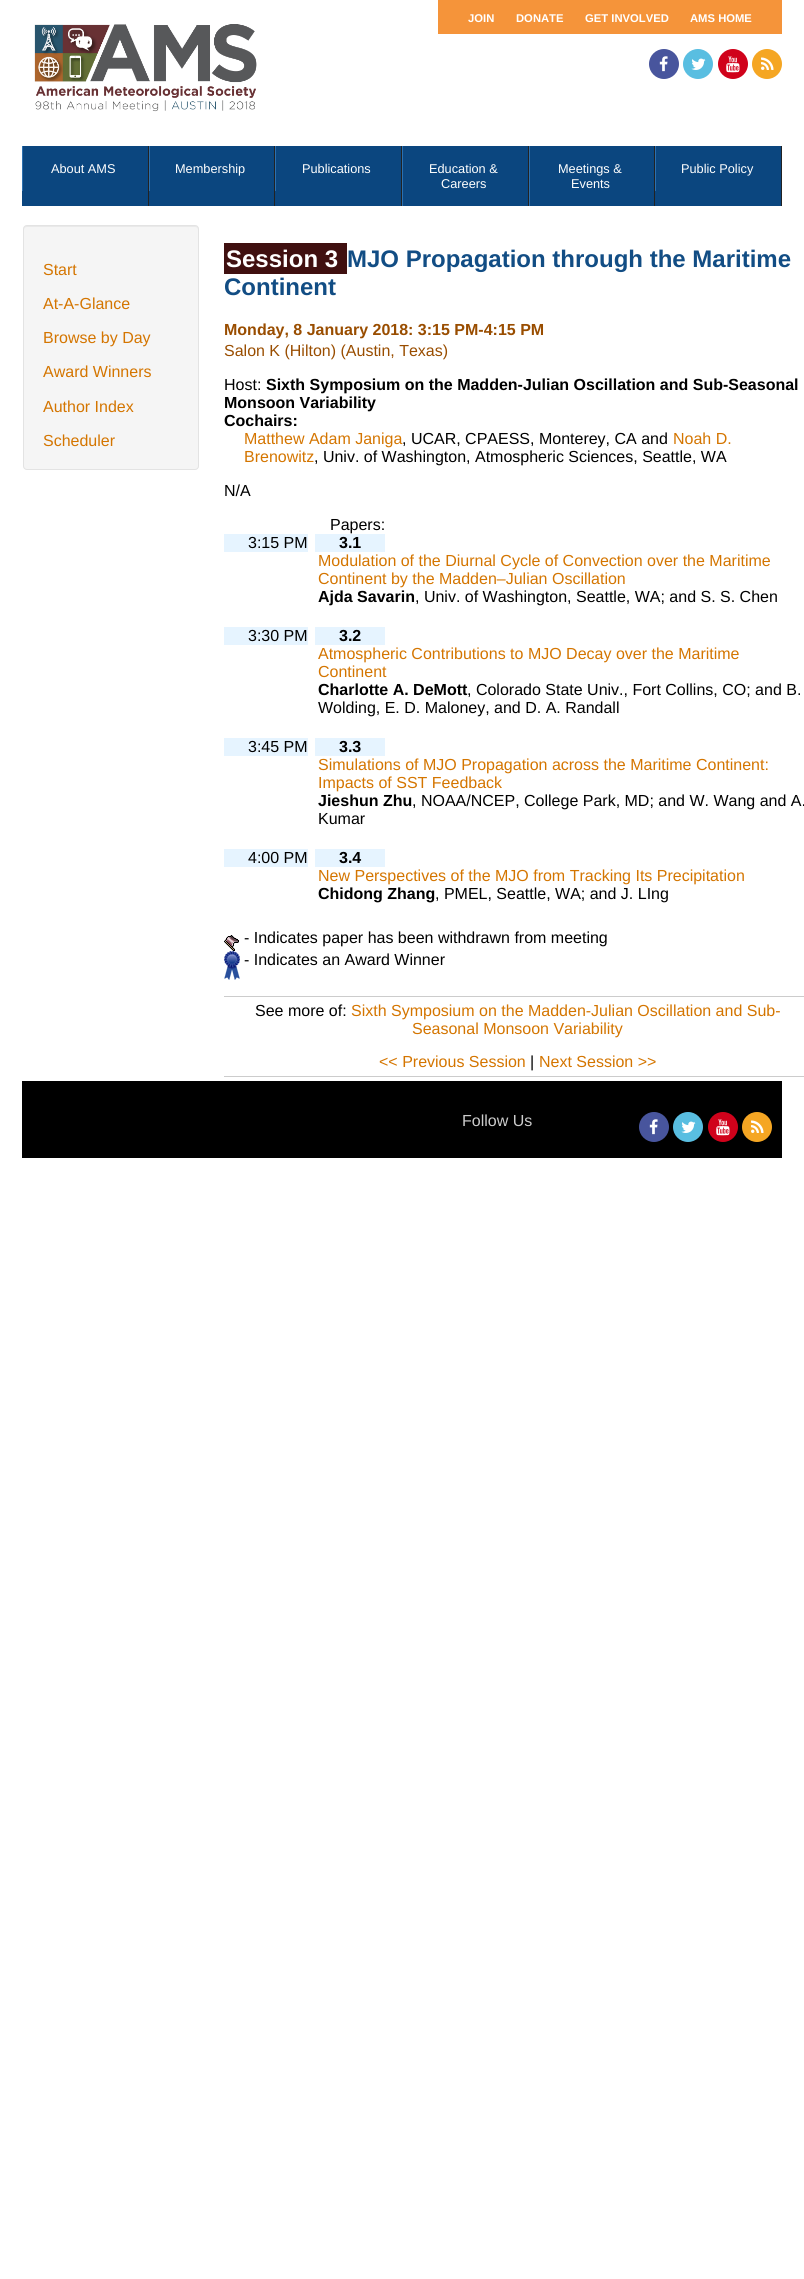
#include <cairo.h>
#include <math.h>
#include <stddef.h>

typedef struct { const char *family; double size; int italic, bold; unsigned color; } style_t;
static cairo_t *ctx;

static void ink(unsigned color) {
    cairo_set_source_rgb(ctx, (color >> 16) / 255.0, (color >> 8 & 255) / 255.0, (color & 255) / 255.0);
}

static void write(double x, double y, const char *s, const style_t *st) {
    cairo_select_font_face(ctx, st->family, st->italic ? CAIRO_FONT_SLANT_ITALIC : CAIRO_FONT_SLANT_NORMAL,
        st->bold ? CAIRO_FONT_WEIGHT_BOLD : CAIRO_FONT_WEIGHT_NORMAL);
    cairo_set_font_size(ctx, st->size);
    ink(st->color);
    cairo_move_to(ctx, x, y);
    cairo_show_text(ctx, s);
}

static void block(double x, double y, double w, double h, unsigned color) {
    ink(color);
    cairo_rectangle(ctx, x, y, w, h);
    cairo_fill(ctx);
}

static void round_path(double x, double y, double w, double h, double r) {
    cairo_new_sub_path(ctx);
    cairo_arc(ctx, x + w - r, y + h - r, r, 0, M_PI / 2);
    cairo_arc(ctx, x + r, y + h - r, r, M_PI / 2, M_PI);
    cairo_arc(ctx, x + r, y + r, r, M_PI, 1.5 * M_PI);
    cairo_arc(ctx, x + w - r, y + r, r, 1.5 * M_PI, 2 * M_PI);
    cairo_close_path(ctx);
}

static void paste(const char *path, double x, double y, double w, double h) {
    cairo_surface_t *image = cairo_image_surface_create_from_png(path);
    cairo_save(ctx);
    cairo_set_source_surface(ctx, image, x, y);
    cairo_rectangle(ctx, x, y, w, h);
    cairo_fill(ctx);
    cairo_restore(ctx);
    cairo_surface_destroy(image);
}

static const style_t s1 = {"Liberation Sans", 11.25, 0, 1, 0xffffff};
static const style_t s2 = {"Liberation Sans", 12.75, 0, 0, 0xffffff};
static const style_t s3 = {"Liberation Sans", 16, 0, 0, 0xd47500};
static const style_t s4 = {"Liberation Sans", 24, 0, 1, 0xffffff};
static const style_t s5 = {"Liberation Sans", 24, 0, 1, 0x124d84};
static const style_t s6 = {"Liberation Sans", 16, 0, 1, 0x994d00};
static const style_t s7 = {"Liberation Sans", 16, 0, 0, 0x994d00};
static const style_t s8 = {"Liberation Sans", 16, 0, 0, 0x000000};
static const style_t s9 = {"Liberation Sans", 16, 0, 1, 0x000000};
static const style_t s10 = {"Liberation Sans", 16, 0, 0, 0xcccccc};

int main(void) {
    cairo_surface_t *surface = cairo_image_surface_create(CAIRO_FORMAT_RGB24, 804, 2279);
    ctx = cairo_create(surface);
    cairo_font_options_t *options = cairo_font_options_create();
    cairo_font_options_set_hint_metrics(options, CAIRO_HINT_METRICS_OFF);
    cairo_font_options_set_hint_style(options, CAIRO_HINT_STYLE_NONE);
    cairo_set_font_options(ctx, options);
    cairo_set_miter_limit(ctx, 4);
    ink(0xffffff);
    cairo_paint(ctx);
    block(438, 0, 344, 34, 0xf5943a);
    write(468, 22, "JOIN", &s1);
    write(516, 22, "DONATE", &s1);
    write(585, 22, "GET INVOLVED", &s1);
    write(690, 22, "AMS HOME", &s1);
    ink(0x48559d);
    cairo_new_path(ctx);
    cairo_arc(ctx, 664, 64, 15, 0, 2 * M_PI);
    cairo_fill(ctx);
    paste("pic1.png", 659, 56, 9, 16);
    ink(0x59bee1);
    cairo_arc(ctx, 698, 64, 15, 0, 2 * M_PI);
    cairo_fill(ctx);
    paste("pic2.png", 691, 58, 15, 12);
    ink(0xd0021b);
    cairo_arc(ctx, 733, 64, 15, 0, 2 * M_PI);
    cairo_fill(ctx);
    paste("pic3.png", 726, 56, 14, 17);
    ink(0xf5a623);
    cairo_arc(ctx, 767, 64, 15, 0, 2 * M_PI);
    cairo_fill(ctx);
    paste("pic4.png", 761, 57, 13, 13);
    paste("pic5.png", 34, 24, 223, 88);
    block(22, 146, 759, 60, 0x0b467f);
    block(148, 146, 1, 60, 0x222222);
    block(22, 146, 1, 45, 0x2c70af);
    write(51, 173, "About AMS", &s2);
    block(274, 146, 1, 60, 0x222222);
    block(149, 146, 1, 45, 0x2c70af);
    write(175, 173, "Membership", &s2);
    block(401, 146, 1, 60, 0x222222);
    block(275, 146, 1, 45, 0x2c70af);
    write(302, 173, "Publications", &s2);
    block(528, 146, 1, 60, 0x222222);
    block(402, 146, 1, 60, 0x2c70af);
    write(429, 173, "Education &", &s2);
    write(441, 188, "Careers", &s2);
    block(654, 146, 1, 60, 0x222222);
    block(529, 146, 1, 60, 0x2c70af);
    write(558, 173, "Meetings &", &s2);
    write(571, 188, "Events", &s2);
    block(781, 146, 1, 60, 0x222222);
    block(655, 146, 1, 45, 0x2c70af);
    write(681, 173, "Public Policy", &s2);
    ink(0xf5f5f5);
    round_path(23, 225, 176, 245, 4);
    cairo_fill(ctx);
    ink(0xe9e9e9);
    cairo_new_path(ctx);
    cairo_move_to(ctx, 27, 227);
    cairo_line_to(ctx, 195, 227);
    cairo_curve_to(ctx, 197, 227, 198, 228, 198, 230);
    cairo_line_to(ctx, 198, 229);
    cairo_curve_to(ctx, 198, 227, 197, 226, 195, 226);
    cairo_line_to(ctx, 27, 226);
    cairo_curve_to(ctx, 25, 226, 24, 227, 24, 229);
    cairo_line_to(ctx, 24, 230);
    cairo_curve_to(ctx, 24, 228, 25, 227, 27, 227);
    cairo_close_path(ctx);
    cairo_fill(ctx);
    round_path(23.5, 225.5, 175, 244, 3.5);
    ink(0xe3e3e3);
    cairo_set_line_width(ctx, 1);
    cairo_stroke(ctx);
    write(43, 275, "Start", &s3);
    write(43, 309, "At-A-Glance", &s3);
    write(43, 343, "Browse by Day", &s3);
    write(43, 377, "Award Winners", &s3);
    write(43, 412, "Author Index", &s3);
    write(43, 446, "Scheduler", &s3);
    block(224, 243, 123, 31, 0x401010);
    write(226, 267, "Session 3", &s4);
    write(347, 267, "MJO Propagation through the Maritime", &s5);
    write(224, 295, "Continent", &s5);
    write(224, 335, "Monday, 8 January 2018: 3:15 PM-4:15 PM", &s6);
    write(224, 356, "Salon K (Hilton) (Austin, Texas)", &s7);
    write(224, 390, "Host:", &s8);
    write(266, 390, "Sixth Symposium on the Madden-Julian Oscillation and Sub-Seasonal", &s9);
    write(224, 408, "Monsoon Variability", &s9);
    write(224, 426, "Cochairs:", &s9);
    write(244, 444, "Matthew Adam Janiga", &s3);
    write(402, 444, ", UCAR, CPAESS, Monterey, CA and", &s8);
    write(673, 444, "Noah D.", &s3);
    write(244, 462, "Brenowitz", &s3);
    write(314, 462, ", Univ. of Washington, Atmospheric Sciences, Seattle, WA", &s8);
    write(224, 496, "N/A", &s8);
    write(330, 530, "Papers:", &s8);
    block(224, 534, 84, 18, 0xe6f4ff);
    write(248, 548, "3:15 PM", &s8);
    block(315, 534, 70, 18, 0xe6f4ff);
    write(339, 548, "3.1", &s9);
    write(318, 566, "Modulation of the Diurnal Cycle of Convection over the Maritime", &s3);
    write(318, 584, "Continent by the Madden–Julian Oscillation", &s3);
    write(318, 602, "Ajda Savarin", &s9);
    write(415, 602, ", Univ. of Washington, Seattle, WA; and S. S. Chen", &s8);
    block(224, 627, 84, 18, 0xe6f4ff);
    write(248, 641, "3:30 PM", &s8);
    block(315, 627, 70, 18, 0xe6f4ff);
    write(339, 641, "3.2", &s9);
    write(318, 659, "Atmospheric Contributions to MJO Decay over the Maritime", &s3);
    write(318, 677, "Continent", &s3);
    write(318, 695, "Charlotte A. DeMott", &s9);
    write(467, 695, ", Colorado State Univ., Fort Collins, CO; and B.", &s8);
    write(318, 713, "Wolding, E. D. Maloney, and D. A. Randall", &s8);
    block(224, 738, 84, 18, 0xe6f4ff);
    write(248, 752, "3:45 PM", &s8);
    block(315, 738, 70, 18, 0xe6f4ff);
    write(339, 752, "3.3", &s9);
    write(318, 770, "Simulations of MJO Propagation across the Maritime Continent:", &s3);
    write(318, 788, "Impacts of SST Feedback", &s3);
    write(318, 806, "Jieshun Zhu", &s9);
    write(412, 806, ", NOAA/NCEP, College Park, MD; and W. Wang and A.", &s8);
    write(318, 824, "Kumar", &s8);
    block(224, 849, 84, 18, 0xe6f4ff);
    write(248, 863, "4:00 PM", &s8);
    block(315, 849, 70, 18, 0xe6f4ff);
    write(339, 863, "3.4", &s9);
    write(318, 881, "New Perspectives of the MJO from Tracking Its Precipitation", &s3);
    write(318, 899, "Chidong Zhang", &s9);
    write(435, 899, ", PMEL, Seattle, WA; and J. LIng", &s8);
    paste("pic6.png", 224, 935, 15, 16);
    write(244, 943, "- Indicates paper has been withdrawn from meeting", &s8);
    paste("pic7.png", 224, 951, 16, 29);
    write(244, 965, "- Indicates an Award Winner", &s8);
    block(224, 996, 580, 1, 0xcccccc);
    write(255, 1016, "See more of:", &s8);
    write(351, 1016, "Sixth Symposium on the Madden-Julian Oscillation and Sub-", &s3);
    write(412, 1034, "Seasonal Monsoon Variability", &s3);
    block(224, 1076, 580, 1, 0xcccccc);
    write(379, 1067, "<< Previous Session", &s3);
    write(530, 1067, "|", &s8);
    write(539, 1067, "Next Session >>", &s3);
    block(22, 1081, 760, 77, 0x000000);
    write(462, 1126, "Follow Us", &s10);
    ink(0x48559d);
    cairo_new_path(ctx);
    cairo_arc(ctx, 654, 1127, 15, 0, 2 * M_PI);
    cairo_fill(ctx);
    paste("pic1.png", 649, 1119, 9, 16);
    ink(0x59bee1);
    cairo_arc(ctx, 688, 1127, 15, 0, 2 * M_PI);
    cairo_fill(ctx);
    paste("pic2.png", 681, 1121, 15, 12);
    ink(0xd0021b);
    cairo_arc(ctx, 723, 1127, 15, 0, 2 * M_PI);
    cairo_fill(ctx);
    paste("pic3.png", 716, 1119, 14, 17);
    ink(0xf5a623);
    cairo_arc(ctx, 757, 1127, 15, 0, 2 * M_PI);
    cairo_fill(ctx);
    paste("pic4.png", 751, 1120, 13, 13);
    cairo_surface_write_to_png(surface, "screenshot.png");
    cairo_font_options_destroy(options);
    cairo_destroy(ctx);
    cairo_surface_destroy(surface);
    return 0;
}
